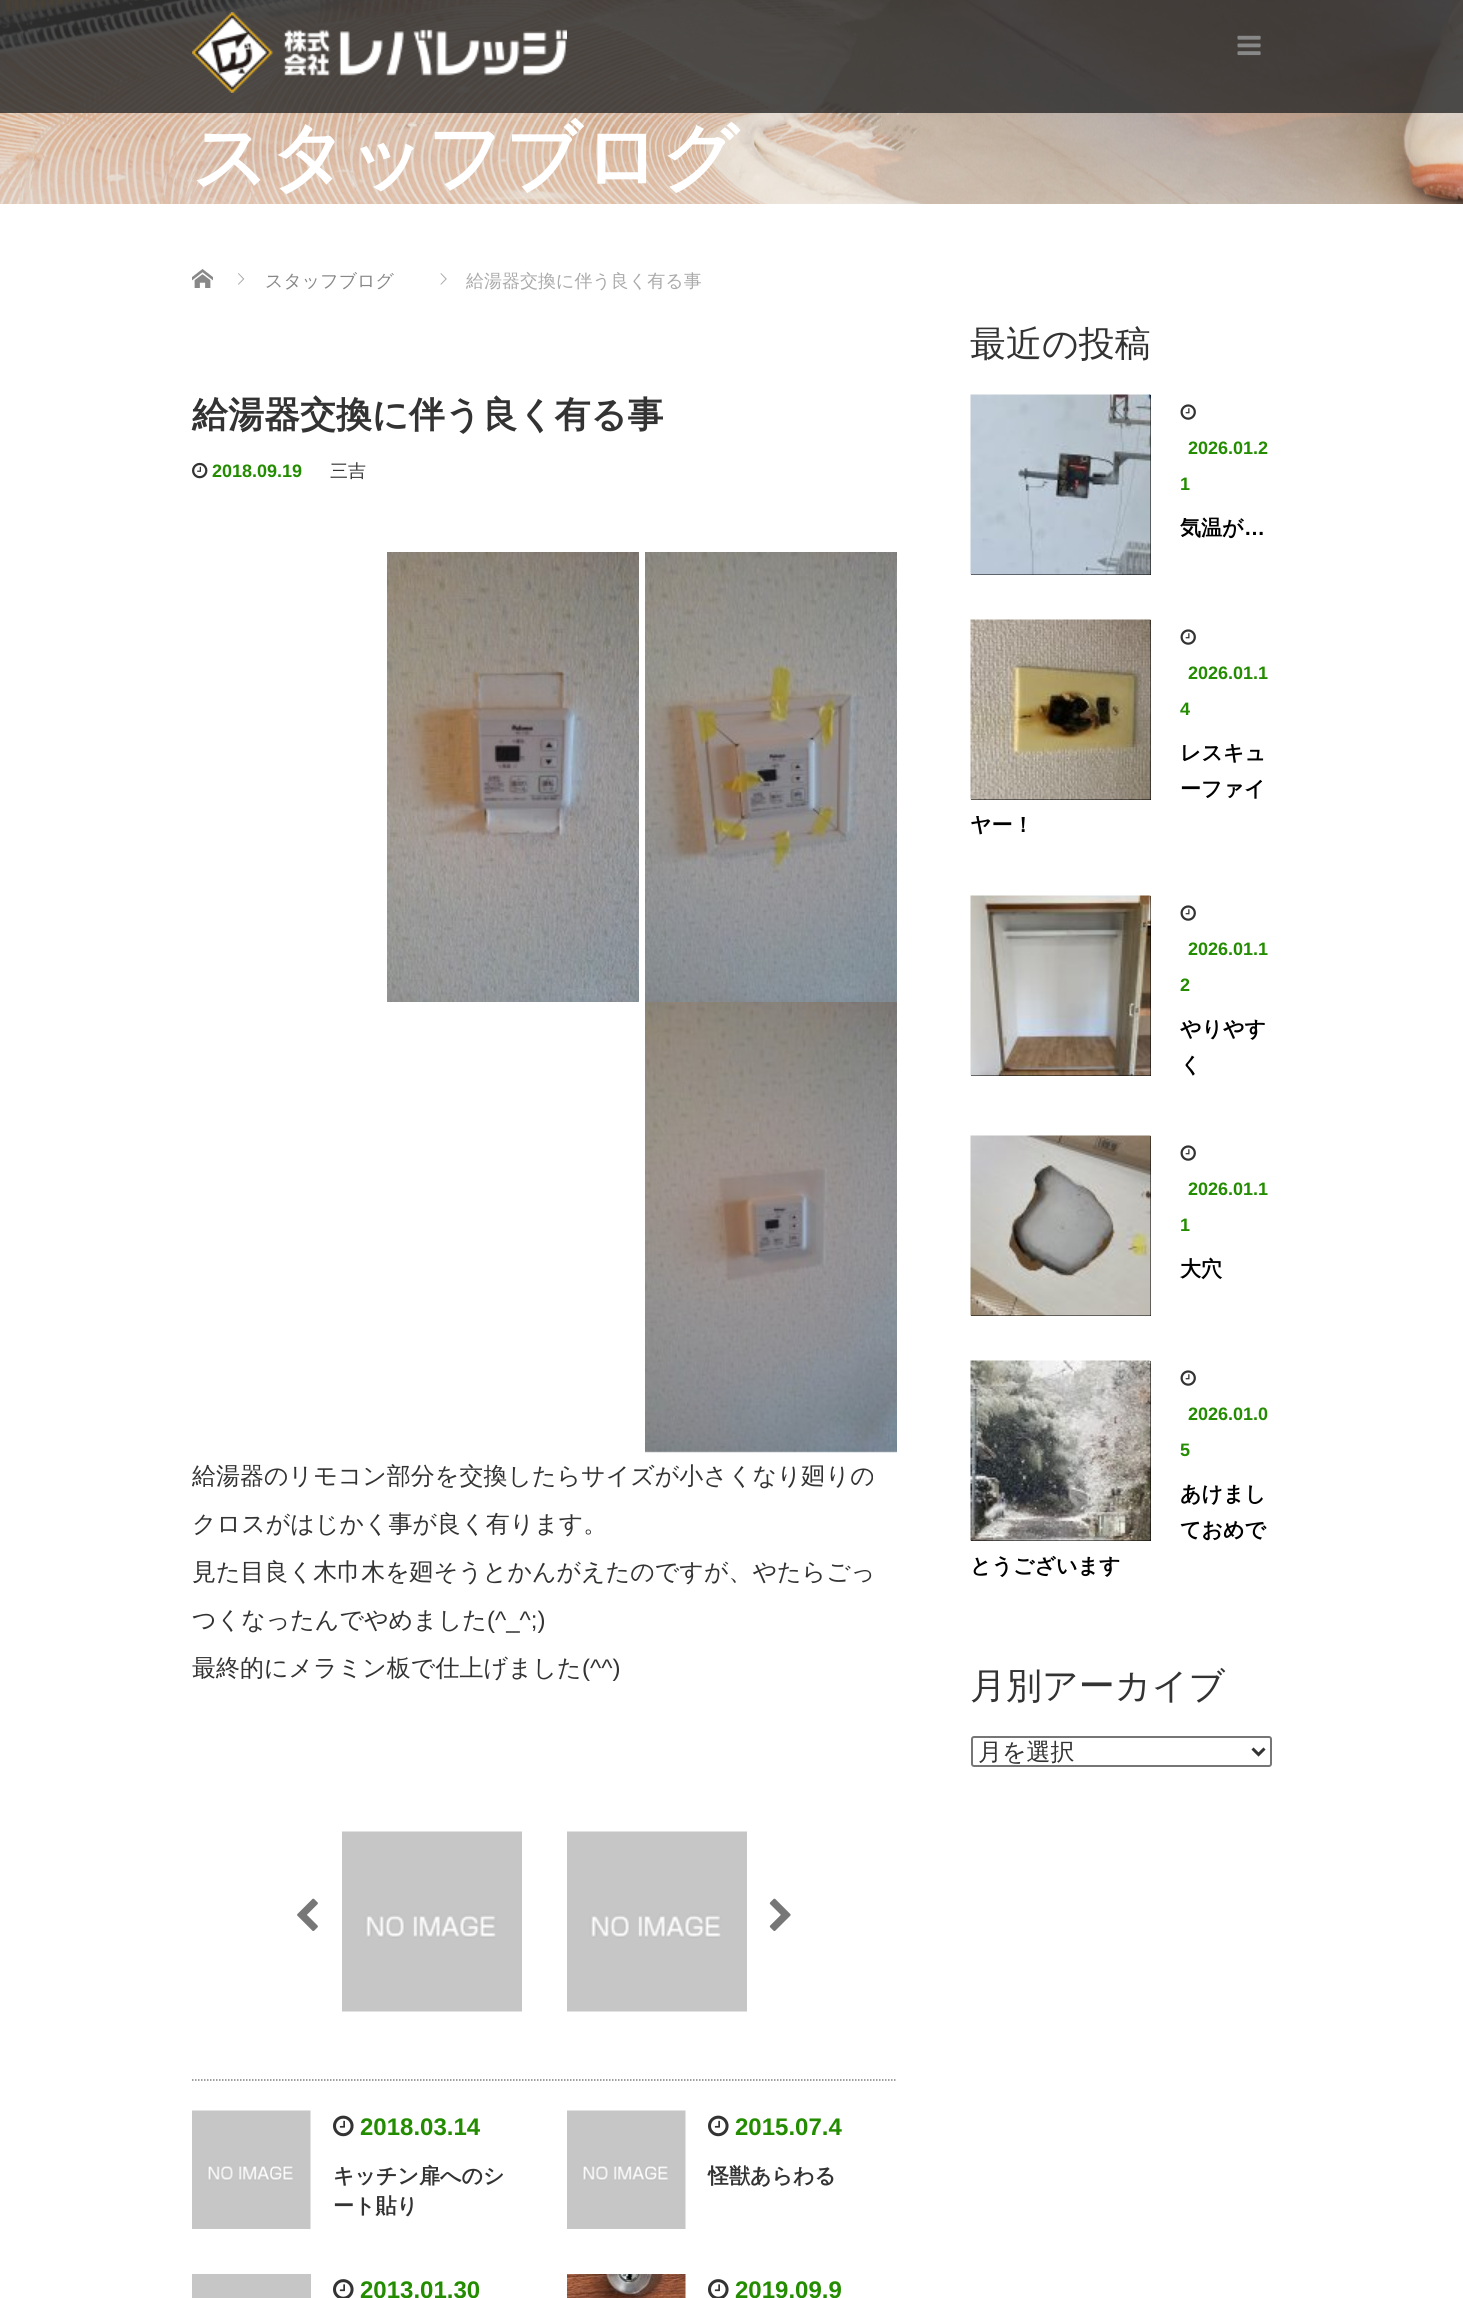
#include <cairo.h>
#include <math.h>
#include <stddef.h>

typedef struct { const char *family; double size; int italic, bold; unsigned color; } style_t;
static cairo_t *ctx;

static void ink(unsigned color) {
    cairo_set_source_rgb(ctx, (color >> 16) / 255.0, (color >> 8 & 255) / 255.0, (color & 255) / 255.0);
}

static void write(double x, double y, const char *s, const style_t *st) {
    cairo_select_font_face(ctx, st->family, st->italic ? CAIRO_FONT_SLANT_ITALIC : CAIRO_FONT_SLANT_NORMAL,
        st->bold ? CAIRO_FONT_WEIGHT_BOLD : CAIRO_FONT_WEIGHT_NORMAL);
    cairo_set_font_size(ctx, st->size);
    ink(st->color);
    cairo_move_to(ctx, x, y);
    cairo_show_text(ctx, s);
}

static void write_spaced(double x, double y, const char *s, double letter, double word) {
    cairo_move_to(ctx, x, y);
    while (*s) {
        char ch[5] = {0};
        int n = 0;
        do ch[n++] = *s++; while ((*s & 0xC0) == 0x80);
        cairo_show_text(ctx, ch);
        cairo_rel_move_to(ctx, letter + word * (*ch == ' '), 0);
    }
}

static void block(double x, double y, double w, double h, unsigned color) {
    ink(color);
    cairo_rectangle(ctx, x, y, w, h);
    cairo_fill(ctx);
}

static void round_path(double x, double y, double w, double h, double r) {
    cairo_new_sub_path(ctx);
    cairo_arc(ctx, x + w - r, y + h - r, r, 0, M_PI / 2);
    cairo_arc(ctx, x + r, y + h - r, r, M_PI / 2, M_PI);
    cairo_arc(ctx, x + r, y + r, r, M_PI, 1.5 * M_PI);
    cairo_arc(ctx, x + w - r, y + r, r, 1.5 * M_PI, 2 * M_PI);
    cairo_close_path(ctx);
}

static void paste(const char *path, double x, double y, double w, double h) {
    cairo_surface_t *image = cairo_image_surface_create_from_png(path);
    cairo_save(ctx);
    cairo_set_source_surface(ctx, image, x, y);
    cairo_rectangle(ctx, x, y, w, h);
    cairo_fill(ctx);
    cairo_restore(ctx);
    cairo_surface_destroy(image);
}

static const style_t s1 = {"WenQuanYi Zen Hei Medium", 18, 0, 0, 0x888888};
static const style_t s2 = {"WenQuanYi Zen Hei Medium", 18, 0, 0, 0xaaaaaa};
static const style_t s3 = {"WenQuanYi Zen Hei", 36, 0, 1, 0x333333};
static const style_t s4 = {"Liberation Sans", 18, 0, 1, 0x238c00};
static const style_t s5 = {"WenQuanYi Zen Hei Medium", 18, 0, 0, 0x333333};
static const style_t s6 = {"WenQuanYi Zen Hei Medium", 24, 0, 0, 0x333333};
static const style_t s7 = {"Liberation Sans", 24, 0, 0, 0x333333};
static const style_t s8 = {"Liberation Sans", 24, 0, 1, 0x238c00};
static const style_t s9 = {"WenQuanYi Zen Hei", 21, 0, 1, 0x333333};
static const style_t s10 = {"WenQuanYi Zen Hei Medium", 36, 0, 0, 0x333333};
static const style_t s11 = {"WenQuanYi Zen Hei", 21, 0, 1, 0x000000};
static const style_t s12 = {"Liberation Sans", 21, 0, 1, 0x000000};

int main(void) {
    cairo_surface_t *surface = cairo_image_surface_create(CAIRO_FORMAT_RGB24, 1463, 2298);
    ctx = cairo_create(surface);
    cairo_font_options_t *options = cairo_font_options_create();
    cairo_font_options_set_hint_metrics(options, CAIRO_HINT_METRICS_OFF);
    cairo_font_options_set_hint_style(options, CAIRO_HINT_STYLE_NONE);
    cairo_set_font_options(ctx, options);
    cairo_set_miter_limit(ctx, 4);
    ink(0xffffff);
    cairo_paint(ctx);
    paste("pic1.png", 0, 0, 1463, 204);
    cairo_set_source_rgba(ctx, 0.157, 0.157, 0.157, 0.8);
    cairo_rectangle(ctx, 0, 0, 1463, 113);
    cairo_fill(ctx);
    paste("pic2.png", 192, 12, 375, 81);
    paste("pic3.png", 1237, 35, 24, 21);
    cairo_select_font_face(ctx, "WenQuanYi Zen Hei", CAIRO_FONT_SLANT_NORMAL, CAIRO_FONT_WEIGHT_BOLD);
    cairo_set_font_size(ctx, 75);
    ink(0xffffff);
    write_spaced(192, 183, "スタッフブログ", 1.5, 0);
    paste("pic4.png", 192, 269, 21, 19);
    paste("pic5.png", 238, 273, 7, 12);
    write(265, 287, "スタッフブログ", &s1);
    paste("pic6.png", 440, 273, 7, 12);
    write(466, 287, "給湯器交換に伴う良く有る事", &s2);
    write(192, 427, "給湯器交換に伴う良く有る事", &s3);
    paste("pic7.png", 192, 462, 16, 17);
    write(212, 477, "2018.09.19", &s4);
    write(330, 477, "三吉", &s5);
    paste("pic8.png", 387, 552, 252, 450);
    paste("pic9.png", 645, 552, 252, 450);
    paste("pic10.png", 645, 1002, 252, 451);
    write(192, 1484, "給湯器のリモコン部分を交換したらサイズが小さくなり廻りの", &s6);
    write(192, 1532, "クロスがはじかく事が良く有ります。", &s6);
    write(192, 1580, "見た目良く木巾木を廻そうとかんがえたのですが、やたらごっ", &s6);
    write(192, 1628, "つくなったんでやめました", &s6);
    write(487, 1628, "(^_^;)", &s7);
    write(192, 1676, "最終的にメラミン板で仕上げました", &s6);
    write(582, 1676, "(^^)", &s7);
    paste("pic11.png", 297, 1898, 21, 33);
    paste("pic12.png", 342, 1831, 180, 181);
    paste("pic12.png", 567, 1831, 180, 181);
    paste("pic13.png", 769, 1898, 22, 33);
    cairo_new_path(ctx);
    cairo_move_to(ctx, 192, 2080);
    cairo_line_to(ctx, 897, 2080);
    ink(0x808080);
    cairo_set_line_width(ctx, 1.5);
    cairo_set_dash(ctx, (double[]){1.5, 1.5}, 2, 0);
    cairo_stroke(ctx);
    paste("pic14.png", 192, 2110, 119, 119);
    paste("pic15.png", 333, 2115, 21, 22);
    write(360, 2135, "2018.03.14", &s8);
    write(333, 2183, "キッチン扉へのシ", &s9);
    write(333, 2213, "ート貼り", &s9);
    paste("pic14.png", 567, 2110, 119, 119);
    paste("pic15.png", 708, 2115, 21, 22);
    write(735, 2135, "2015.07.4", &s8);
    write(708, 2183, "怪獣あらわる", &s9);
    block(192, 2274, 119, 24, 0xc6c6c6);
    paste("pic16.png", 333, 2279, 21, 19);
    write(360, 2298, "2013.01.30", &s8);
    paste("pic17.png", 567, 2274, 119, 24);
    paste("pic16.png", 708, 2279, 21, 19);
    write(735, 2298, "2019.09.9", &s8);
    write(970, 356, "最近の投稿", &s10);
    block(971, 395, 180, 180, 0x000000);
    paste("pic18.png", 970, 394, 181, 181);
    paste("pic19.png", 1180, 404, 16, 16);
    write(1188, 454, "2026.01.2", &s4);
    write(1180, 490, "1", &s4);
    write(1180, 535, "気温が", &s11);
    write(1244, 535, "…", &s12);
    block(971, 620, 180, 180, 0x000000);
    paste("pic20.png", 970, 619, 181, 181);
    paste("pic19.png", 1180, 629, 16, 16);
    write(1188, 679, "2026.01.1", &s4);
    write(1180, 715, "4", &s4);
    write(1180, 760, "レスキュ", &s11);
    write(1180, 796, "ーファイ", &s11);
    write(970, 832, "ヤー！", &s11);
    block(971, 896, 180, 180, 0x000000);
    paste("pic21.png", 970, 895, 181, 181);
    paste("pic19.png", 1180, 905, 16, 16);
    write(1188, 955, "2026.01.1", &s4);
    write(1180, 991, "2", &s4);
    write(1180, 1036, "やりやす", &s11);
    write(1180, 1072, "く", &s11);
    block(971, 1136, 180, 180, 0x000000);
    paste("pic22.png", 970, 1135, 181, 181);
    paste("pic19.png", 1180, 1145, 16, 16);
    write(1188, 1195, "2026.01.1", &s4);
    write(1180, 1231, "1", &s4);
    write(1180, 1276, "大穴", &s11);
    block(971, 1361, 180, 180, 0x000000);
    paste("pic23.png", 970, 1360, 181, 181);
    paste("pic19.png", 1180, 1370, 16, 16);
    write(1188, 1420, "2026.01.0", &s4);
    write(1180, 1456, "5", &s4);
    write(1180, 1501, "あけまし", &s11);
    write(1180, 1537, "ておめで", &s11);
    write(970, 1573, "とうございます", &s11);
    write(970, 1698, "月別アーカイブ", &s10);
    round_path(972, 1737, 299, 29, 2);
    ink(0x767676);
    cairo_set_line_width(ctx, 2);
    cairo_set_dash(ctx, NULL, 0, 0);
    cairo_stroke(ctx);
    cairo_new_path(ctx);
    cairo_move_to(ctx, 1252.5, 1748.5);
    cairo_line_to(ctx, 1258.5, 1754.5);
    cairo_line_to(ctx, 1264.5, 1748.5);
    ink(0x333333);
    cairo_set_line_width(ctx, 3);
    cairo_stroke(ctx);
    write(978, 1760, "月を選択", &s6);
    cairo_surface_write_to_png(surface, "screenshot.png");
    cairo_font_options_destroy(options);
    cairo_destroy(ctx);
    cairo_surface_destroy(surface);
    return 0;
}
